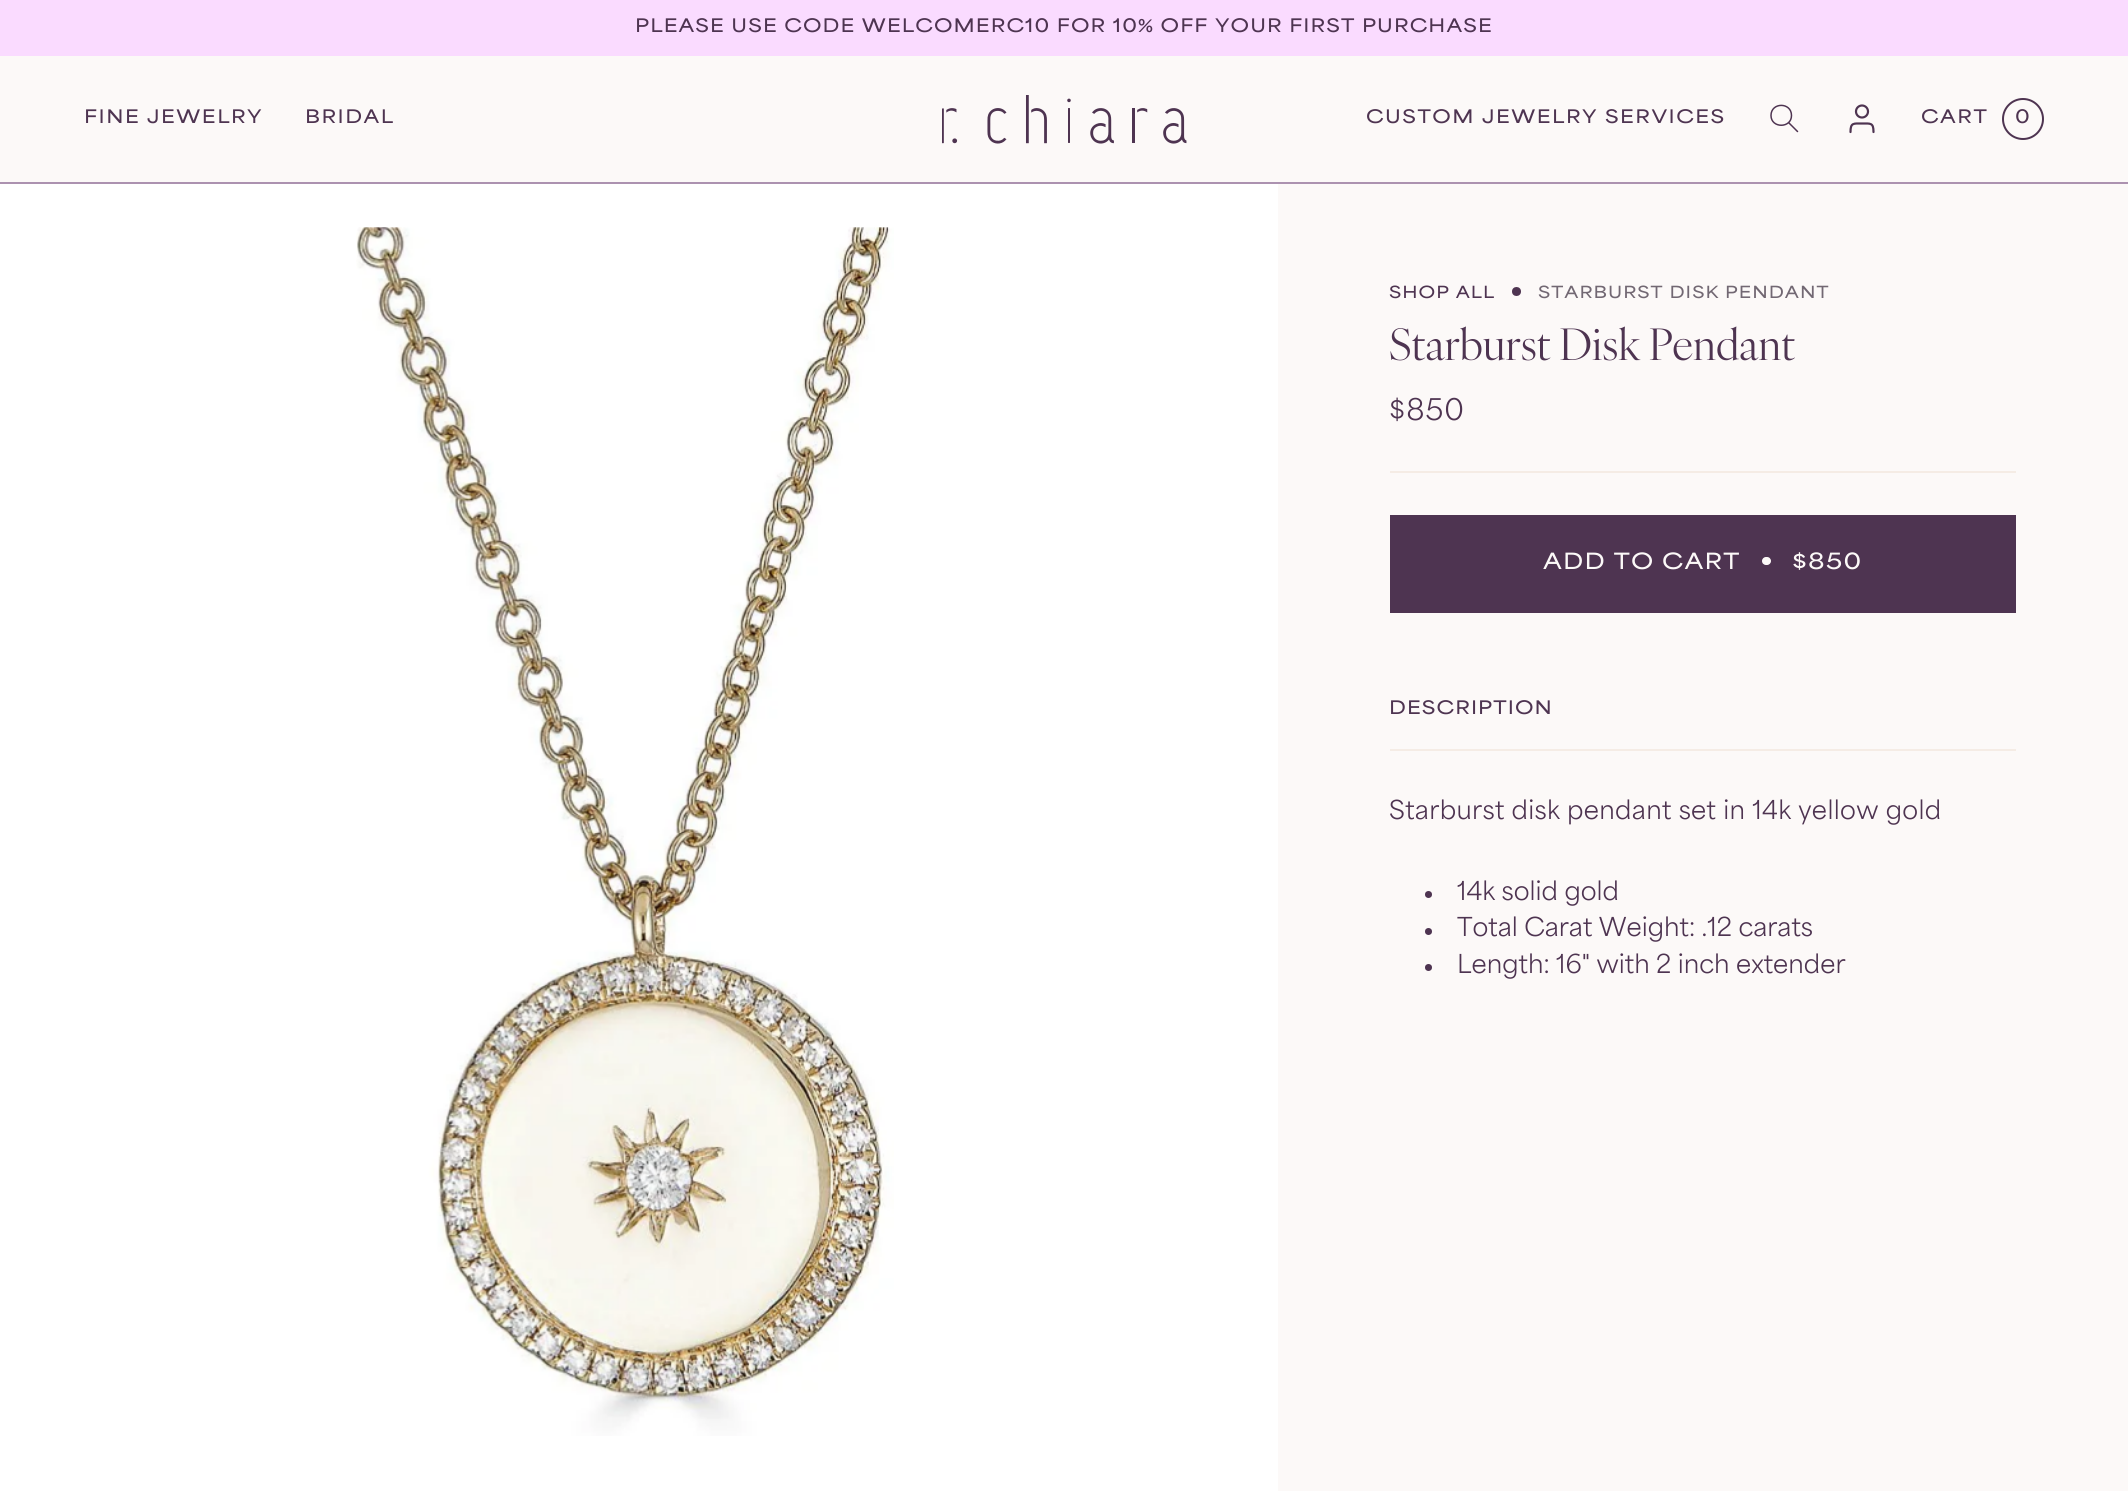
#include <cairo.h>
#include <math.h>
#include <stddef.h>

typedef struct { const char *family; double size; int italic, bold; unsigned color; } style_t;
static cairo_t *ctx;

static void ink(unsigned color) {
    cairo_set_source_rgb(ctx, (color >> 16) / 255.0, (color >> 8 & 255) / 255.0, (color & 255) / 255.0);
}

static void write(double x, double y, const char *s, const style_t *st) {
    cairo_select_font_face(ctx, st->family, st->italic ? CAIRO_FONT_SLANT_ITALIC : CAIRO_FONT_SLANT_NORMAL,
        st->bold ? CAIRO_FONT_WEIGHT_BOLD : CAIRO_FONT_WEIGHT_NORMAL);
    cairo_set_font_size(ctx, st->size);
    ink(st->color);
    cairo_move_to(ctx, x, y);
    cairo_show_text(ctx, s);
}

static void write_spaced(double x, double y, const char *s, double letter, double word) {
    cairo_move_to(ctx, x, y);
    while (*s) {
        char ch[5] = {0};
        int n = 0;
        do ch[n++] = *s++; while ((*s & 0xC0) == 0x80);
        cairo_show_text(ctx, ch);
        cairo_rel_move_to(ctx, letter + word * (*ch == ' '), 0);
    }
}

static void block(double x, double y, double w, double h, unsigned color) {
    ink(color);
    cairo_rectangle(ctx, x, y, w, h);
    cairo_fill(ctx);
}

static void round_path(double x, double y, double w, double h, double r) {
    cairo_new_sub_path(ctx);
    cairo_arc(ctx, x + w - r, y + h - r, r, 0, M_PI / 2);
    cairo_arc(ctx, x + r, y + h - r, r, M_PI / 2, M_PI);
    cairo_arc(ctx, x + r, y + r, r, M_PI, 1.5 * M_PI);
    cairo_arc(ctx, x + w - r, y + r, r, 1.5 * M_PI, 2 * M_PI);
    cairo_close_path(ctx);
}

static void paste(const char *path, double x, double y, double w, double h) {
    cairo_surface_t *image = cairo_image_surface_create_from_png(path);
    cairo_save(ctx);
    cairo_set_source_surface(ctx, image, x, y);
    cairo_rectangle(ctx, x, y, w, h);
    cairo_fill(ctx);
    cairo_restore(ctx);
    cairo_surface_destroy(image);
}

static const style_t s1 = {"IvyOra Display", 43.25, 0, 0, 0x4e3451};
static const style_t s2 = {"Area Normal", 24.5, 0, 0, 0x4e3451};

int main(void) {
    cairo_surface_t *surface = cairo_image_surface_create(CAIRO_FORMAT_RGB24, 2128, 1491);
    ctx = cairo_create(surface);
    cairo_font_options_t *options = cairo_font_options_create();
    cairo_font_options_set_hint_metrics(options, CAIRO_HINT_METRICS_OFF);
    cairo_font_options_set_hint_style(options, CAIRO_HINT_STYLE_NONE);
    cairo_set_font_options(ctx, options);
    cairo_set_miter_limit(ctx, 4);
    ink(0xfcf9f8);
    cairo_paint(ctx);
    block(0, 0, 2128, 56, 0xfadbff);
    cairo_select_font_face(ctx, "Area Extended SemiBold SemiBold", CAIRO_FONT_SLANT_NORMAL, CAIRO_FONT_WEIGHT_NORMAL);
    cairo_set_font_size(ctx, 17.5);
    ink(0x4e3451);
    write_spaced(635, 32, "PLEASE USE CODE WELCOMERC10 FOR 10% OFF YOUR FIRST PURCHASE", 1.1, 0);
    block(0, 182, 2128, 2, 0xac92b0);
    ink(0x4e3451);
    write_spaced(84, 123, "FINE JEWELRY", 1.5, 0);
    write_spaced(305, 123, "BRIDAL", 1.5, 0);
    paste("pic1.png", 942, 95, 245, 49);
    write_spaced(1366, 123, "CUSTOM JEWELRY SERVICES", 1.5, 0);
    cairo_new_path(ctx);
    cairo_move_to(ctx, 1797.5, 131.5);
    cairo_line_to(ctx, 1788.5, 122.5);
    cairo_move_to(ctx, 1791.5, 115.5);
    cairo_curve_to(ctx, 1791.5, 128.5, 1771, 128.5, 1771, 115.5);
    cairo_curve_to(ctx, 1771, 102, 1791.5, 102, 1791.5, 115.5);
    cairo_close_path(ctx);
    cairo_set_line_width(ctx, 1.5);
    cairo_set_line_cap(ctx, CAIRO_LINE_CAP_ROUND);
    cairo_set_line_join(ctx, CAIRO_LINE_JOIN_ROUND);
    cairo_stroke(ctx);
    cairo_new_path(ctx);
    cairo_move_to(ctx, 1873.5, 132);
    cairo_curve_to(ctx, 1873.5, 122.5, 1870.5, 123.5, 1862, 123.5);
    cairo_curve_to(ctx, 1853.5, 123.5, 1850.5, 122.5, 1850.5, 132);
    cairo_set_line_width(ctx, 2.2);
    cairo_stroke(ctx);
    cairo_arc(ctx, 1862, 111.5, 6, 0, 2 * M_PI);
    cairo_set_line_cap(ctx, CAIRO_LINE_CAP_BUTT);
    cairo_set_line_join(ctx, CAIRO_LINE_JOIN_MITER);
    cairo_stroke(ctx);
    write_spaced(1921, 123, "CART", 1.5, 0);
    cairo_new_path(ctx);
    cairo_arc(ctx, 2023, 119, 20, 0, 2 * M_PI);
    cairo_set_line_width(ctx, 2);
    cairo_stroke(ctx);
    write_spaced(2015, 123, "0", 1.5, 0);
    block(0, 184, 1278, 1307, 0xffffff);
    paste("pic2.png", 356, 227, 538, 1209);
    block(1390, 471, 626, 2, 0xf5ece5);
    cairo_set_font_size(ctx, 15.75);
    ink(0x4e3451);
    write_spaced(1389, 298, "SHOP ALL", 1, 0);
    cairo_new_path(ctx);
    cairo_arc(ctx, 1516.5, 291.5, 4.5, 0, 2 * M_PI);
    cairo_fill(ctx);
    ink(0x726873);
    write_spaced(1538, 298, "STARBURST DISK PENDANT", 1, 0);
    write(1389, 360, "Starburst Disk Pendant", &s1);
    cairo_select_font_face(ctx, "Area Normal", CAIRO_FONT_SLANT_NORMAL, CAIRO_FONT_WEIGHT_NORMAL);
    cairo_set_font_size(ctx, 28);
    write_spaced(1389, 420, "$850", 1, 0);
    block(1390, 515, 626, 98, 0x4e3451);
    cairo_select_font_face(ctx, "Area Extended SemiBold SemiBold", CAIRO_FONT_SLANT_NORMAL, CAIRO_FONT_WEIGHT_NORMAL);
    cairo_set_font_size(ctx, 21);
    ink(0xfcf9f8);
    write_spaced(1543, 569, "ADD TO CART", 1.25, 0);
    round_path(1762, 557, 9, 8, 4);
    cairo_fill(ctx);
    write_spaced(1792, 569, "$850", 1.25, 0);
    cairo_set_font_size(ctx, 17.5);
    ink(0x4e3451);
    write_spaced(1389, 714, "DESCRIPTION", 1.1, 0);
    block(1390, 749, 626, 2, 0xf5ece5);
    cairo_select_font_face(ctx, "Area Normal", CAIRO_FONT_SLANT_NORMAL, CAIRO_FONT_WEIGHT_NORMAL);
    cairo_set_font_size(ctx, 24.5);
    ink(0x4e3451);
    write_spaced(1389, 819, "Starburst disk pendant set in 14k yellow gold", 0.35, 0);
    cairo_new_path(ctx);
    cairo_arc(ctx, 1428.5, 894.5, 3.5, 0, 2 * M_PI);
    cairo_fill(ctx);
    write(1457, 900, "14k solid gold", &s2);
    cairo_new_path(ctx);
    cairo_arc(ctx, 1428.5, 931.5, 3.5, 0, 2 * M_PI);
    cairo_fill(ctx);
    write(1457, 936, "Total Carat Weight: .12 carats", &s2);
    cairo_new_path(ctx);
    cairo_arc(ctx, 1428.5, 967.5, 3.5, 0, 2 * M_PI);
    cairo_fill(ctx);
    write(1457, 973, "Length: 16\" with 2 inch extender", &s2);
    cairo_surface_write_to_png(surface, "screenshot.png");
    cairo_font_options_destroy(options);
    cairo_destroy(ctx);
    cairo_surface_destroy(surface);
    return 0;
}
